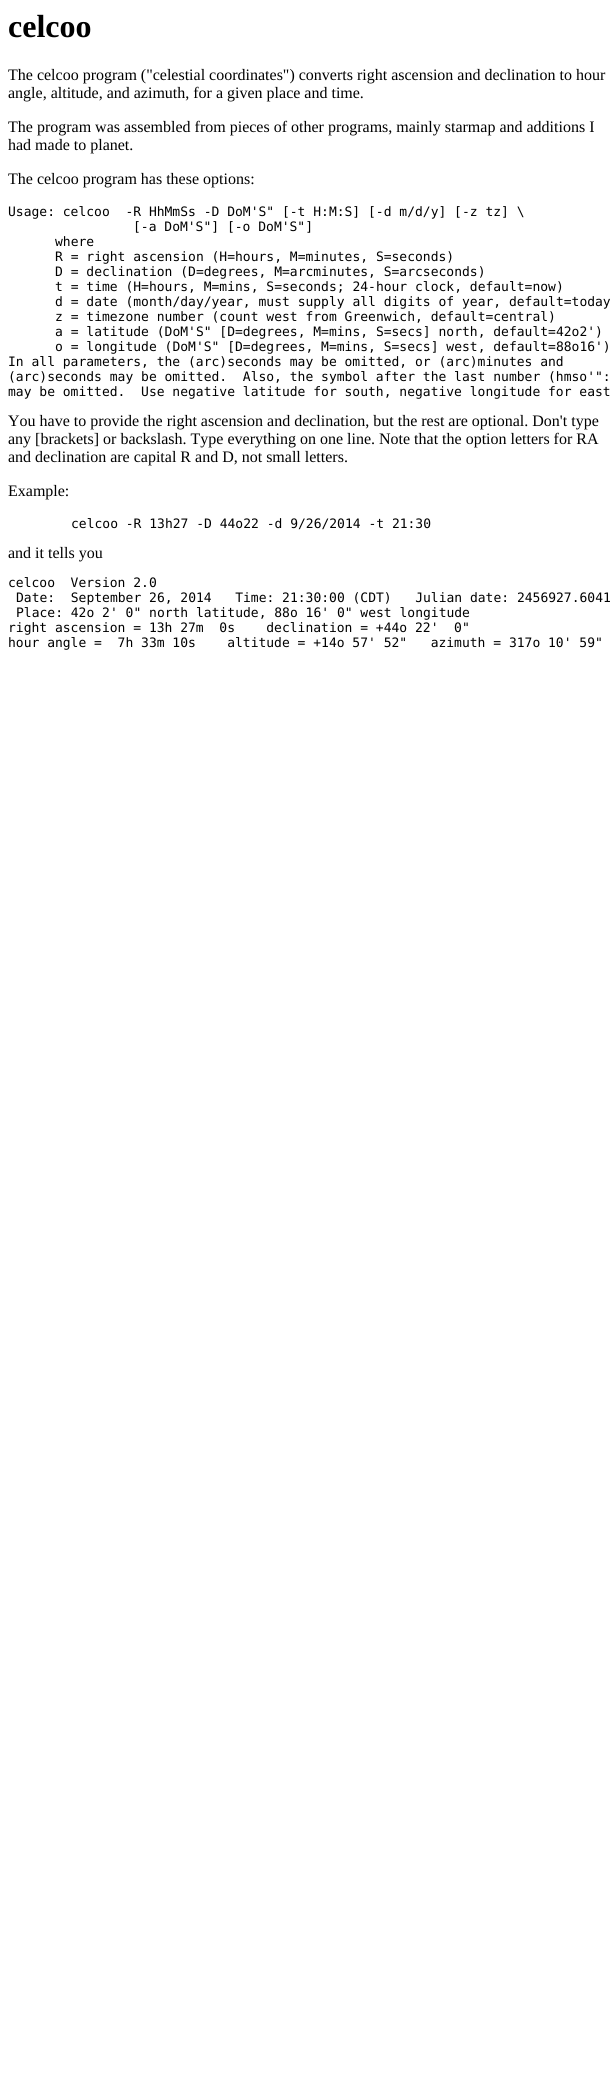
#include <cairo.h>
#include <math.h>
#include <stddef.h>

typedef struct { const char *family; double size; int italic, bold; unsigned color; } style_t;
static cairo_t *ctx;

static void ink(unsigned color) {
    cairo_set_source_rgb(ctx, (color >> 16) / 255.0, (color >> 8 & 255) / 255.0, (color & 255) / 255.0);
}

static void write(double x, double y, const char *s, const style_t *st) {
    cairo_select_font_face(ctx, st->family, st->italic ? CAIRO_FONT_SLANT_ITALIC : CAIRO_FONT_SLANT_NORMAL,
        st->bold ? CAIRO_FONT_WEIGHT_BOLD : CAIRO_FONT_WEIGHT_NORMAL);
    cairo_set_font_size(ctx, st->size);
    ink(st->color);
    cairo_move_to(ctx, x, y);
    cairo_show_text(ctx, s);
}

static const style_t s1 = {"Liberation Serif", 32, 0, 1, 0x000000};
static const style_t s2 = {"Liberation Serif", 16, 0, 0, 0x000000};
static const style_t s3 = {"DejaVu Sans Mono", 13, 0, 0, 0x000000};

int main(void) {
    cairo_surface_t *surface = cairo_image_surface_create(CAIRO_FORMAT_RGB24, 614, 2077);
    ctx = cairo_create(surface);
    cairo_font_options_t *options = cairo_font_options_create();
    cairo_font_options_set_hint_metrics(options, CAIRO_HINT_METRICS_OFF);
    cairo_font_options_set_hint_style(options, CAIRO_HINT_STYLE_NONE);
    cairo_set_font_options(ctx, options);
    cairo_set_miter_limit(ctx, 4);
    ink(0xffffff);
    cairo_paint(ctx);
    write(8, 37, "celcoo", &s1);
    write(8, 80, "The celcoo program (\"celestial coordinates\") converts right ascension and declination to hour", &s2);
    write(8, 98, "angle, altitude, and azimuth, for a given place and time.", &s2);
    write(8, 132, "The program was assembled from pieces of other programs, mainly starmap and additions I", &s2);
    write(8, 150, "had made to planet.", &s2);
    write(8, 184, "The celcoo program has these options:", &s2);
    write(8, 216, "Usage: celcoo  -R HhMmSs -D DoM'S\" [-t H:M:S] [-d m/d/y] [-z tz] \\", &s3);
    write(133, 231, "[-a DoM'S\"] [-o DoM'S\"]", &s3);
    write(55, 246, "where", &s3);
    write(55, 261, "R = right ascension (H=hours, M=minutes, S=seconds)", &s3);
    write(55, 276, "D = declination (D=degrees, M=arcminutes, S=arcseconds)", &s3);
    write(55, 291, "t = time (H=hours, M=mins, S=seconds; 24-hour clock, default=now)", &s3);
    write(55, 306, "d = date (month/day/year, must supply all digits of year, default=today", &s3);
    write(55, 321, "z = timezone number (count west from Greenwich, default=central)", &s3);
    write(55, 336, "a = latitude (DoM'S\" [D=degrees, M=mins, S=secs] north, default=42o2')", &s3);
    write(55, 351, "o = longitude (DoM'S\" [D=degrees, M=mins, S=secs] west, default=88o16')", &s3);
    write(8, 366, "In all parameters, the (arc)seconds may be omitted, or (arc)minutes and", &s3);
    write(8, 381, "(arc)seconds may be omitted.  Also, the symbol after the last number (hmso'\":", &s3);
    write(8, 396, "may be omitted.  Use negative latitude for south, negative longitude for east", &s3);
    write(8, 426, "You have to provide the right ascension and declination, but the rest are optional. Don't type", &s2);
    write(8, 444, "any [brackets] or backslash. Type everything on one line. Note that the option letters for RA", &s2);
    write(8, 462, "and declination are capital R and D, not small letters.", &s2);
    write(8, 496, "Example:", &s2);
    write(71, 528, "celcoo -R 13h27 -D 44o22 -d 9/26/2014 -t 21:30", &s3);
    write(8, 558, "and it tells you", &s2);
    write(8, 587, "celcoo  Version 2.0", &s3);
    write(16, 602, "Date:  September 26, 2014   Time: 21:30:00 (CDT)   Julian date: 2456927.6041", &s3);
    write(16, 617, "Place: 42o 2' 0\" north latitude, 88o 16' 0\" west longitude", &s3);
    write(8, 632, "right ascension = 13h 27m  0s    declination = +44o 22'  0\"", &s3);
    write(8, 647, "hour angle =  7h 33m 10s    altitude = +14o 57' 52\"   azimuth = 317o 10' 59\"", &s3);
    cairo_surface_write_to_png(surface, "screenshot.png");
    cairo_font_options_destroy(options);
    cairo_destroy(ctx);
    cairo_surface_destroy(surface);
    return 0;
}
